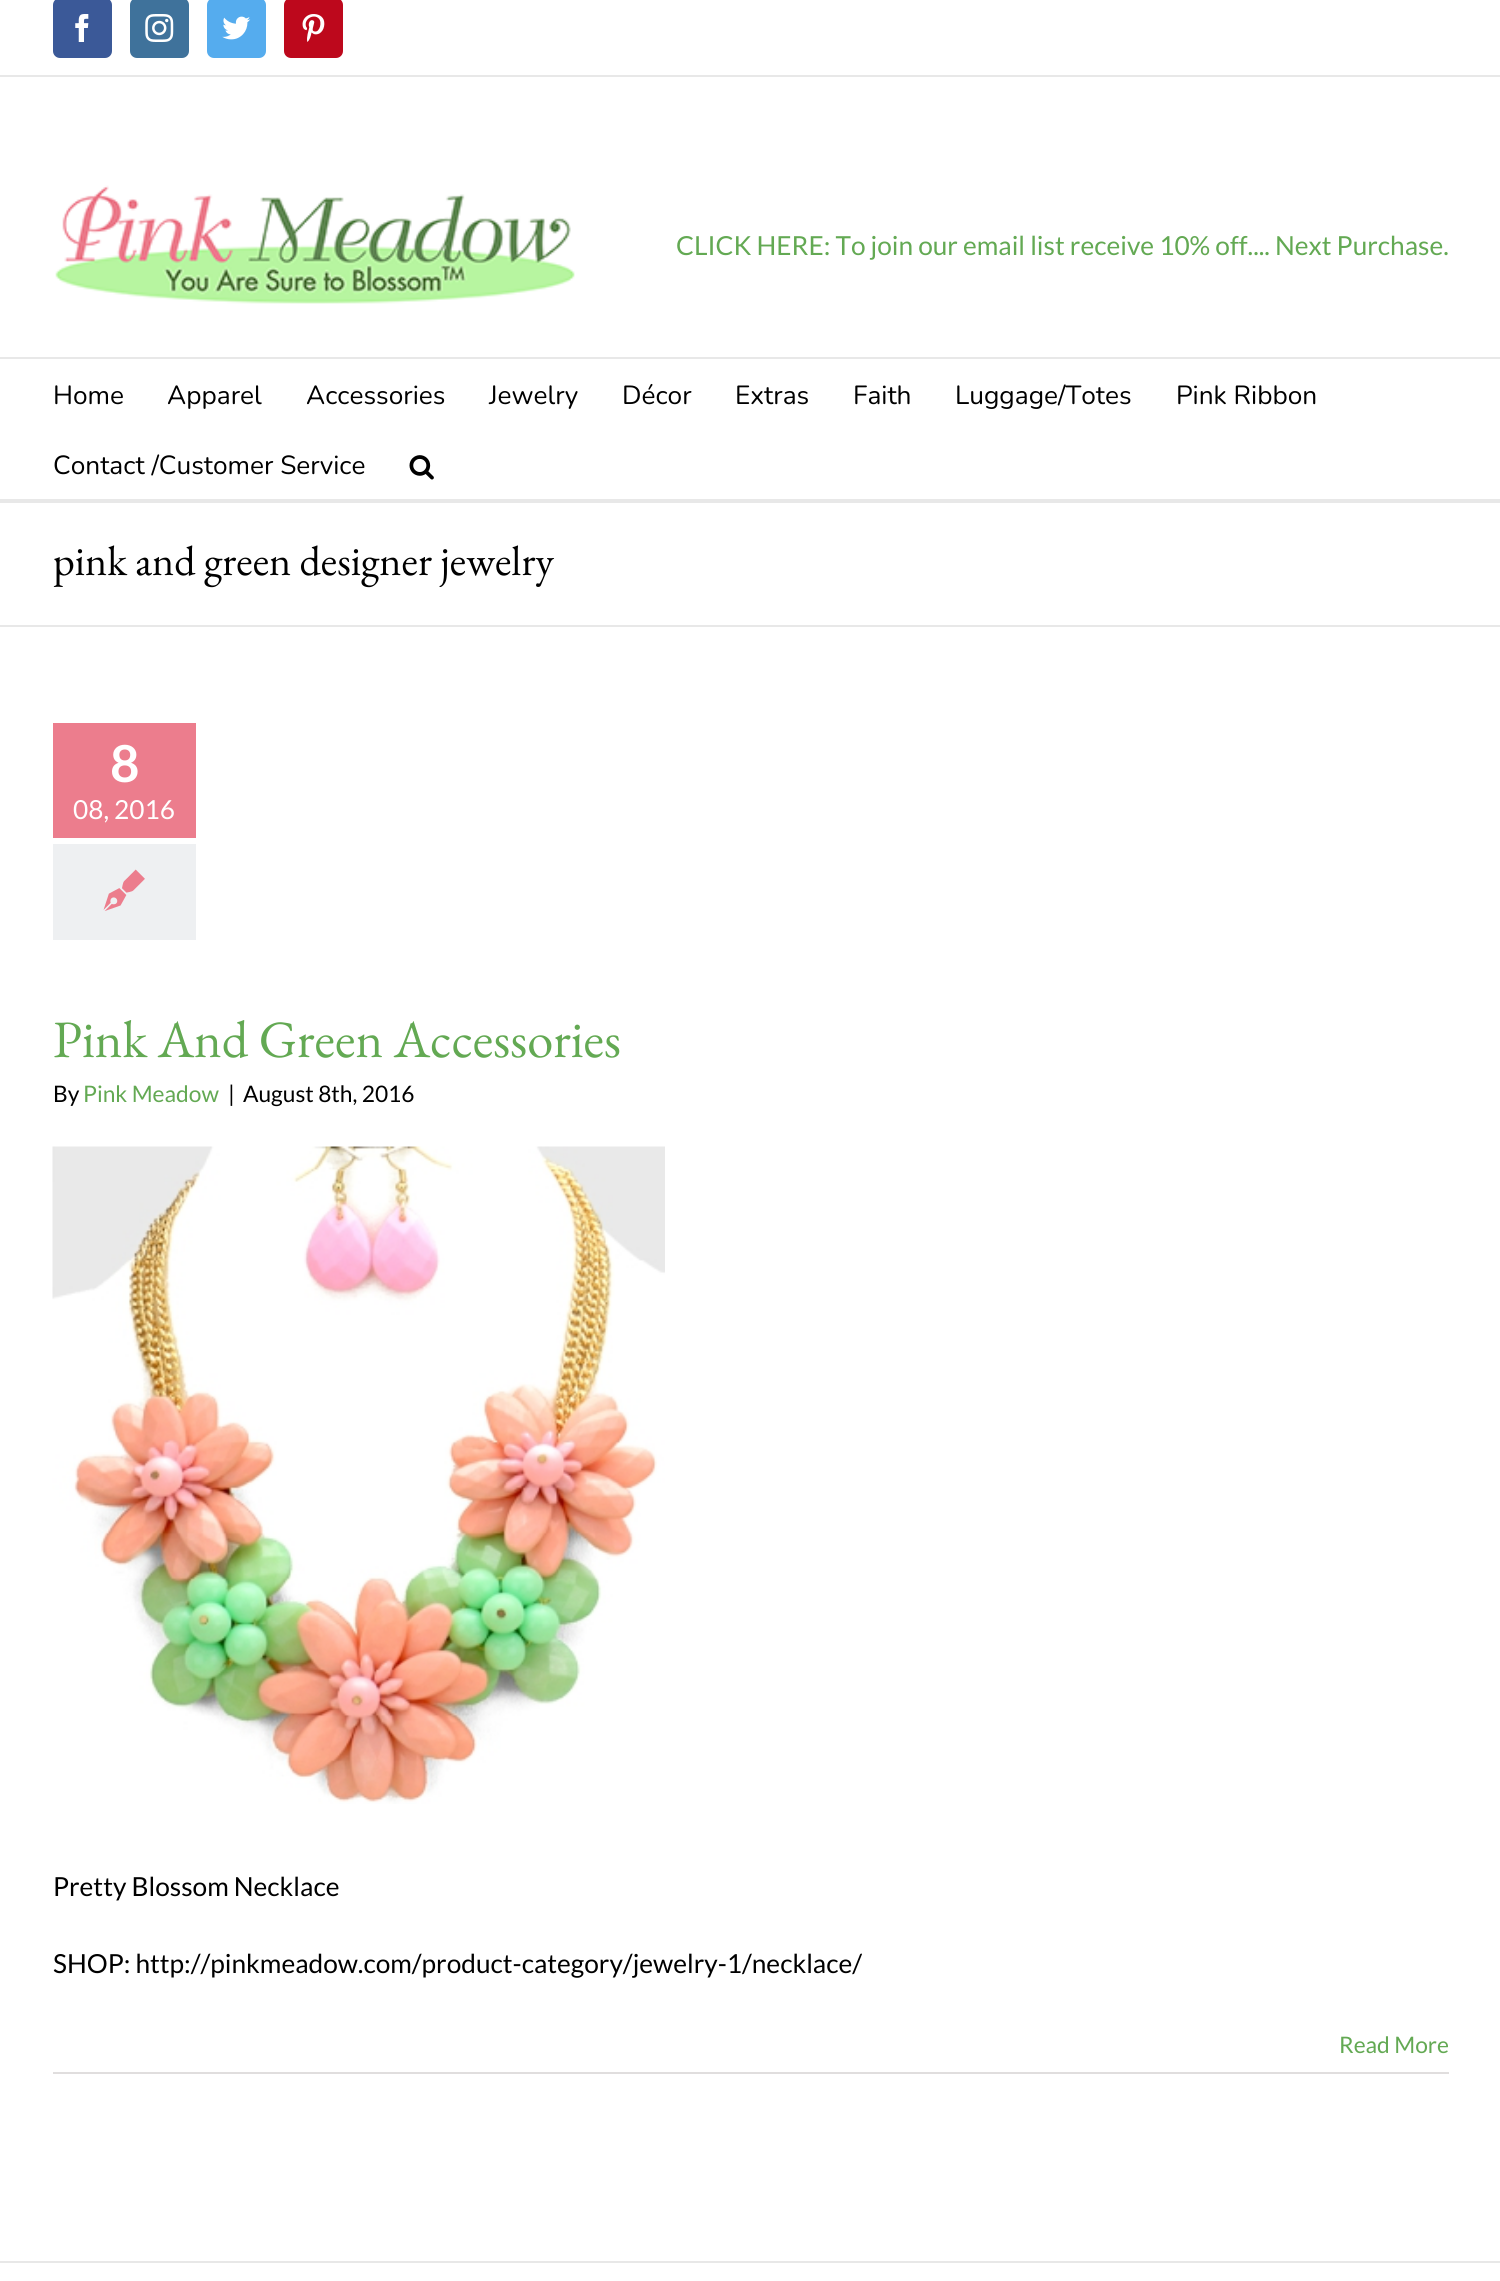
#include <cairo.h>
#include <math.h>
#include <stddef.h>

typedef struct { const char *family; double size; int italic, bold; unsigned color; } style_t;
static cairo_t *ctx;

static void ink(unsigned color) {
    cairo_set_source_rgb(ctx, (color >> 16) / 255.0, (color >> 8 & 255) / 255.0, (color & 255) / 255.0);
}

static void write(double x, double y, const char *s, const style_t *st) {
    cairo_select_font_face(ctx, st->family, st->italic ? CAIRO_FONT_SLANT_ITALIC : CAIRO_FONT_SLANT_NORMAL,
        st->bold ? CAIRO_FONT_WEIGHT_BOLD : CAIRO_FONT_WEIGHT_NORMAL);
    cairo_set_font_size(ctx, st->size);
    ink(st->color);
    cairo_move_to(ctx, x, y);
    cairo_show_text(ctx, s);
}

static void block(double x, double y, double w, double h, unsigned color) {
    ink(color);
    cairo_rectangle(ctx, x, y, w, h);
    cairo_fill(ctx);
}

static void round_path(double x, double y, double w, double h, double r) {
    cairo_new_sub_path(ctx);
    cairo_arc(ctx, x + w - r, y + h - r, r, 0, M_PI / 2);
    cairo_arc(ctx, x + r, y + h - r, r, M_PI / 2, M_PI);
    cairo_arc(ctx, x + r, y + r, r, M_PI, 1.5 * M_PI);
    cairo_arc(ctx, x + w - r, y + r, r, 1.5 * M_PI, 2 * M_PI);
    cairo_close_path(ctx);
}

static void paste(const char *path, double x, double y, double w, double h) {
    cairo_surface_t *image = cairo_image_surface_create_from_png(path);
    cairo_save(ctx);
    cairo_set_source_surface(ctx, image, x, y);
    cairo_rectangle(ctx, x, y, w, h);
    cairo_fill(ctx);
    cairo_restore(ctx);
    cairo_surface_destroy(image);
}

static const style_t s1 = {"Lato", 26.25, 0, 0, 0x63a953};
static const style_t s2 = {"Nunito ExtraLight", 26.25, 0, 0, 0x000000};
static const style_t s3 = {"EB Garamond", 42, 0, 0, 0x000000};
static const style_t s4 = {"Lato", 51, 0, 1, 0xffffff};
static const style_t s5 = {"Lato", 26.25, 0, 0, 0xffffff};
static const style_t s6 = {"EB Garamond", 52.5, 0, 0, 0x63a953};
static const style_t s7 = {"Lato", 22.75, 0, 0, 0x000000};
static const style_t s8 = {"Lato", 22.75, 0, 0, 0x63a953};
static const style_t s9 = {"Lato", 26.25, 0, 0, 0x000000};

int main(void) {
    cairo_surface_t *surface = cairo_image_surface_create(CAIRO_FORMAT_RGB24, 1500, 2281);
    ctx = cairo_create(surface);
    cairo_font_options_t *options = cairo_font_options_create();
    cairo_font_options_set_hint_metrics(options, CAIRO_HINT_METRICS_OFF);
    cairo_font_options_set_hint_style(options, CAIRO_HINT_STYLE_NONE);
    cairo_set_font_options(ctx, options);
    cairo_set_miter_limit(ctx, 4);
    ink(0xffffff);
    cairo_paint(ctx);
    block(0, 75, 1500, 2, 0xe8e8e8);
    ink(0x3b5998);
    round_path(54, -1, 57, 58, 6);
    cairo_fill_preserve(ctx);
    cairo_stroke(ctx);
    paste("pic1.png", 75, 14, 14, 28);
    ink(0x3f729b);
    round_path(131, -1, 57, 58, 6);
    cairo_fill_preserve(ctx);
    cairo_stroke(ctx);
    paste("pic2.png", 145, 14, 29, 28);
    ink(0x55acee);
    round_path(208, -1, 57, 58, 6);
    cairo_fill_preserve(ctx);
    cairo_stroke(ctx);
    paste("pic3.png", 222, 16, 29, 24);
    ink(0xbd081c);
    round_path(285, -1, 57, 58, 6);
    cairo_fill_preserve(ctx);
    cairo_stroke(ctx);
    paste("pic4.png", 302, 14, 23, 28);
    block(0, 357, 1500, 2, 0xe8e8e8);
    paste("pic5.png", 55, 185, 520, 119);
    write(676, 255, "CLICK HERE: To join our email list receive 10% off.... Next Purchase.", &s1);
    write(53, 404, "Home", &s2);
    write(167, 404, "Apparel", &s2);
    write(306, 404, "Accessories", &s2);
    write(489, 404, "Jewelry", &s2);
    write(622, 404, "Décor", &s2);
    write(735, 404, "Extras", &s2);
    write(853, 404, "Faith", &s2);
    write(955, 404, "Luggage/Totes", &s2);
    write(1176, 404, "Pink Ribbon", &s2);
    write(53, 474, "Contact /Customer Service", &s2);
    paste("pic6.png", 409, 455, 25, 25);
    block(0, 499, 1500, 4, 0xe8e8e8);
    block(0, 625, 1500, 2, 0xe8e8e8);
    write(53, 575, "pink and green designer jewelry", &s3);
    block(53, 723, 143, 115, 0xec7d8d);
    write(110, 782, "8", &s4);
    write(73, 819, "08, 2016", &s5);
    block(53, 844, 143, 96, 0xeef0f2);
    paste("pic7.png", 103, 869, 42, 42);
    write(53, 1057, "Pink And Green Accessories", &s6);
    write(53, 1102, "By", &s7);
    write(83, 1102, "Pink Meadow", &s8);
    write(228, 1102, "|", &s7);
    write(243, 1102, "August 8th, 2016", &s7);
    paste("pic8.png", 52, 1146, 613, 658);
    write(53, 1896, "Pretty Blossom Necklace", &s9);
    write(53, 1973, "SHOP: http://pinkmeadow.com/product-category/jewelry-1/necklace/", &s9);
    block(53, 2072, 1396, 2, 0xe0dede);
    write(1339, 2053, "Read More", &s8);
    block(0, 2261, 1500, 2, 0xe8e8e8);
    cairo_surface_write_to_png(surface, "screenshot.png");
    cairo_font_options_destroy(options);
    cairo_destroy(ctx);
    cairo_surface_destroy(surface);
    return 0;
}
